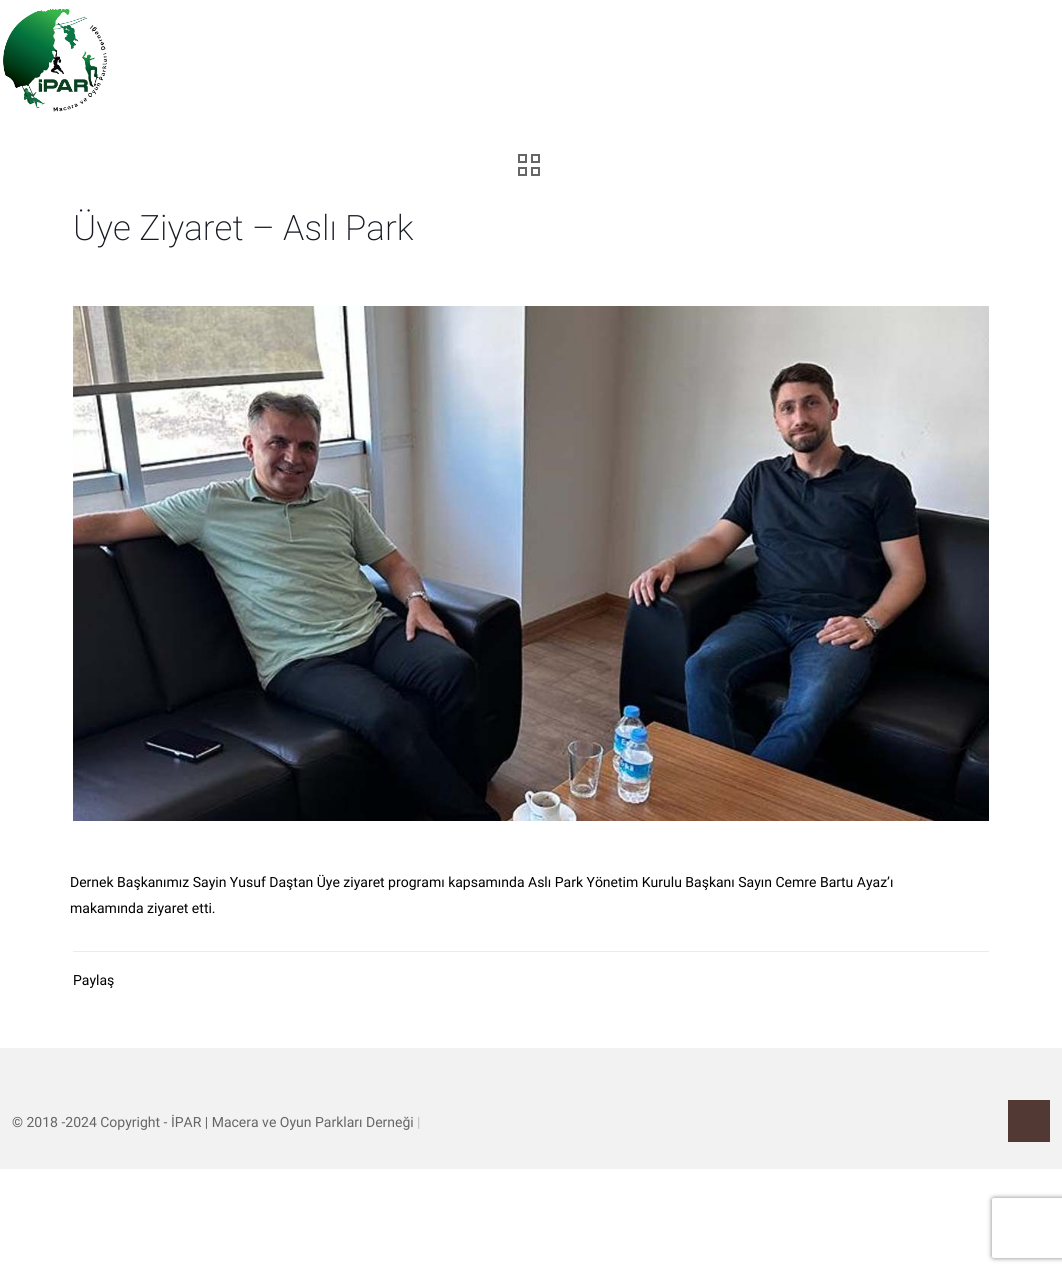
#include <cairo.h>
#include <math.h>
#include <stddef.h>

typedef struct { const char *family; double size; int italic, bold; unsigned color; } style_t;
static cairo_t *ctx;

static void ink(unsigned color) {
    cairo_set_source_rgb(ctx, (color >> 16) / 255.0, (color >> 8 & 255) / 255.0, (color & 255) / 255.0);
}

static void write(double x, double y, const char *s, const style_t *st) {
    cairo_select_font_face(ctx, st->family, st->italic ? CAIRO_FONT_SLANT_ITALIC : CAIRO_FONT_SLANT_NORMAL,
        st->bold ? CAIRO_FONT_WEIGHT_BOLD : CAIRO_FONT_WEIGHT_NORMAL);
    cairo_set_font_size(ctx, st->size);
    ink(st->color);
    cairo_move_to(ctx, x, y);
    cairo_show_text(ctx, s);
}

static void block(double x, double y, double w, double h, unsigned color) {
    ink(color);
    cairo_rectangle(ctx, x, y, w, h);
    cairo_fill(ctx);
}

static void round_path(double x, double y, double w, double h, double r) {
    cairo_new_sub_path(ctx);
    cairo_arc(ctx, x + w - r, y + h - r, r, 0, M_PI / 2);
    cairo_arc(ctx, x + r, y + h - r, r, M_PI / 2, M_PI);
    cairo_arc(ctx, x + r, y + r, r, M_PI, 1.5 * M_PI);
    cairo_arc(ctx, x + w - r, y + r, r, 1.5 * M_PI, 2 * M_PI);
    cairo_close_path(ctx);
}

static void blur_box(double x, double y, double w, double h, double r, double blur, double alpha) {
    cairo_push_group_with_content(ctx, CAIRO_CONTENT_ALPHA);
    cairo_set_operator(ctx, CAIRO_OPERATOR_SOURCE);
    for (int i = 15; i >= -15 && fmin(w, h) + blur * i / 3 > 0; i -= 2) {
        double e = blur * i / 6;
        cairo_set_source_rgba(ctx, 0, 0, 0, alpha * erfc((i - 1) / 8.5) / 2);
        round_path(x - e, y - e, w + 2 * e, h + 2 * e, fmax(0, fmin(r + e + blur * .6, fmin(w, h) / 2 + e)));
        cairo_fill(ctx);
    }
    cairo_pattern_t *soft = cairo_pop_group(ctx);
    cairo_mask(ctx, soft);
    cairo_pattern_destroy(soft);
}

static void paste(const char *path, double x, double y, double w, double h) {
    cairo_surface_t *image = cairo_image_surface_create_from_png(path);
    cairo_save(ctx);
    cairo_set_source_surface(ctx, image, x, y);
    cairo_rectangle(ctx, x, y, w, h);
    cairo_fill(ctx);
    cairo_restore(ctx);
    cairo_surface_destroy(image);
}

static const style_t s1 = {"Roboto ExtraLight", 35, 0, 0, 0x161922};
static const style_t s2 = {"Roboto", 14, 0, 0, 0x000000};
static const style_t s3 = {"Roboto", 14, 0, 0, 0x666666};
static const style_t s4 = {"Roboto", 14, 0, 0, 0xbdbdbd};

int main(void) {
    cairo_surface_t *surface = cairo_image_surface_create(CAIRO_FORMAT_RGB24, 1062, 1272);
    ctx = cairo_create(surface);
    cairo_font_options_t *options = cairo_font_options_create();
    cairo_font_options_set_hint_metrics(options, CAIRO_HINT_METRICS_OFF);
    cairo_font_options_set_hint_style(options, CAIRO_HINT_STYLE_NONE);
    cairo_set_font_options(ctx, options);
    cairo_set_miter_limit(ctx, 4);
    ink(0xffffff);
    cairo_paint(ctx);
    paste("pic1.png", 3, 8, 104, 104);
    paste("pic2.png", 518, 154, 22, 22);
    write(73, 240, "Üye Ziyaret – Aslı Park", &s1);
    paste("pic3.png", 73, 306, 916, 515);
    write(70, 887, "Dernek Başkanımız Sayin Yusuf Daştan Üye ziyaret programı kapsamında Aslı Park Yönetim Kurulu Başkanı Sayın Cemre Bartu Ayaz’ı", &s2);
    write(70, 913, "makamında ziyaret etti.", &s2);
    block(73, 951, 916, 1, 0xebebeb);
    write(73, 985, "Paylaş", &s2);
    block(0, 1048, 1062, 121, 0xf2f2f2);
    write(12, 1127, "© 2018 -2024 Copyright - İPAR | Macera ve Oyun Parkları Derneği", &s3);
    write(417, 1127, "|", &s4);
    block(1008, 1100, 42, 42, 0x523934);
    cairo_save(ctx);
    cairo_set_fill_rule(ctx, CAIRO_FILL_RULE_EVEN_ODD);
    cairo_new_path(ctx);
    cairo_move_to(ctx, 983, 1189);
    cairo_line_to(ctx, 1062, 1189);
    cairo_line_to(ctx, 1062, 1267);
    cairo_line_to(ctx, 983, 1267);
    cairo_close_path(ctx);
    cairo_move_to(ctx, 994, 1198);
    cairo_line_to(ctx, 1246, 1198);
    cairo_curve_to(ctx, 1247, 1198, 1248, 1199, 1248, 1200);
    cairo_line_to(ctx, 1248, 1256);
    cairo_curve_to(ctx, 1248, 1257, 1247, 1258, 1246, 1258);
    cairo_line_to(ctx, 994, 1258);
    cairo_curve_to(ctx, 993, 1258, 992, 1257, 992, 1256);
    cairo_line_to(ctx, 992, 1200);
    cairo_curve_to(ctx, 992, 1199, 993, 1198, 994, 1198);
    cairo_close_path(ctx);
    cairo_clip(ctx);
    ink(0x808080);
    blur_box(992, 1198, 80, 60, 2, 2.5, 1);
    cairo_restore(ctx);
    cairo_surface_write_to_png(surface, "screenshot.png");
    cairo_font_options_destroy(options);
    cairo_destroy(ctx);
    cairo_surface_destroy(surface);
    return 0;
}
